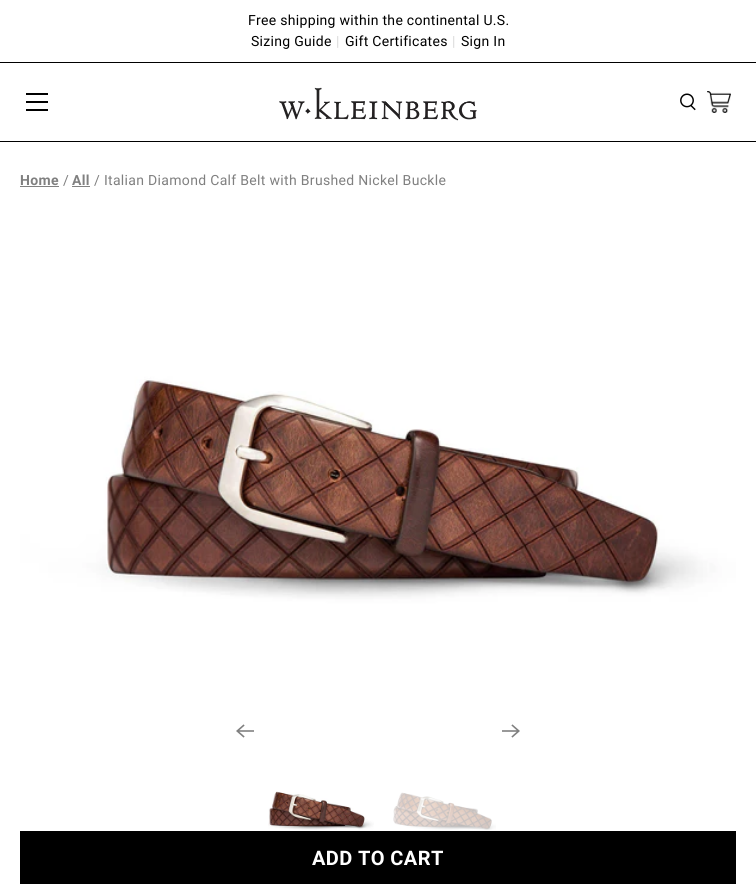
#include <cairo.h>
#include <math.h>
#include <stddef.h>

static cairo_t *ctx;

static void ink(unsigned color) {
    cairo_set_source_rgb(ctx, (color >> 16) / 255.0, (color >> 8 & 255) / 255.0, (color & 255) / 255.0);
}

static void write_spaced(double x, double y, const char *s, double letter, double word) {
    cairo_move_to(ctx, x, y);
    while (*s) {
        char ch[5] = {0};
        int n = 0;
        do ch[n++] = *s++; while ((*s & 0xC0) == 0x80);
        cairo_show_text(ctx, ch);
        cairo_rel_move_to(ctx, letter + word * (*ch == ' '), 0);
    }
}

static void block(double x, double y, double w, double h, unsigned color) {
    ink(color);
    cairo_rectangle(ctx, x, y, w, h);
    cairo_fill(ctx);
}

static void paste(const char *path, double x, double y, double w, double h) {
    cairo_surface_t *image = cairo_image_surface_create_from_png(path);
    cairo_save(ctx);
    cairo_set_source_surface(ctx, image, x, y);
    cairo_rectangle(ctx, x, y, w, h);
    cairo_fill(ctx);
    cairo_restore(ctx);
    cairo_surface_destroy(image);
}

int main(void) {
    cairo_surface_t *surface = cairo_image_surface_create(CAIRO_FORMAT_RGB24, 756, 895);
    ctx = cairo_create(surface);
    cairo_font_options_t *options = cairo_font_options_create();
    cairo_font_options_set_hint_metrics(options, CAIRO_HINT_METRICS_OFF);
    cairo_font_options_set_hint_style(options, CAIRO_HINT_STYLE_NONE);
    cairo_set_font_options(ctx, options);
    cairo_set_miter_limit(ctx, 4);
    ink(0xffffff);
    cairo_paint(ctx);
    block(0, 62, 756, 1, 0x000000);
    cairo_select_font_face(ctx, "Roboto", CAIRO_FONT_SLANT_NORMAL, CAIRO_FONT_WEIGHT_NORMAL);
    cairo_set_font_size(ctx, 14);
    write_spaced(248, 25, "Free shipping within the continental U.S.", 0.3, 0);
    write_spaced(251, 46, "Sizing Guide", 0.3, 0);
    ink(0xd9d9d9);
    write_spaced(336, 46, "|", 0.3, 0);
    ink(0x000000);
    write_spaced(345, 46, "Gift Certificates", 0.3, 0);
    ink(0xd9d9d9);
    write_spaced(452, 46, "|", 0.3, 0);
    ink(0x000000);
    write_spaced(461, 46, "Sign In", 0.3, 0);
    block(0, 141, 756, 1, 0x000000);
    block(26, 93, 22, 2, 0x000000);
    block(26, 101, 22, 2, 0x000000);
    block(26, 109, 22, 2, 0x000000);
    paste("pic1.png", 279, 87, 198, 34);
    paste("pic2.png", 680, 93, 16, 18);
    paste("pic3.png", 707, 91, 24, 22);
    cairo_select_font_face(ctx, "Roboto", CAIRO_FONT_SLANT_NORMAL, CAIRO_FONT_WEIGHT_BOLD);
    ink(0x808080);
    write_spaced(20, 185, "Home", 0.32, 0);
    block(20, 186, 39, 1, 0x808080);
    cairo_select_font_face(ctx, "Roboto", CAIRO_FONT_SLANT_NORMAL, CAIRO_FONT_WEIGHT_NORMAL);
    write_spaced(63, 185, "/", 0.32, 0);
    cairo_select_font_face(ctx, "Roboto", CAIRO_FONT_SLANT_NORMAL, CAIRO_FONT_WEIGHT_BOLD);
    write_spaced(72, 185, "All", 0.32, 0);
    block(72, 186, 18, 1, 0x808080);
    cairo_select_font_face(ctx, "Roboto", CAIRO_FONT_SLANT_NORMAL, CAIRO_FONT_WEIGHT_NORMAL);
    write_spaced(94, 185, "/ Italian Diamond Calf Belt with Brushed Nickel Buckle", 0.32, 0);
    paste("pic4.png", 20, 229, 716, 477);
    paste("pic5.png", 236, 724, 18, 14);
    paste("pic6.png", 502, 724, 18, 14);
    paste("pic7.png", 268, 791, 106, 39);
    paste("pic8.png", 393, 792, 103, 38);
    block(20, 831, 716, 53, 0x000000);
    cairo_select_font_face(ctx, "Roboto", CAIRO_FONT_SLANT_NORMAL, CAIRO_FONT_WEIGHT_BOLD);
    cairo_set_font_size(ctx, 20);
    ink(0xffffff);
    write_spaced(312, 865, "ADD TO CART", 0.4, 0);
    cairo_surface_write_to_png(surface, "screenshot.png");
    cairo_font_options_destroy(options);
    cairo_destroy(ctx);
    cairo_surface_destroy(surface);
    return 0;
}
